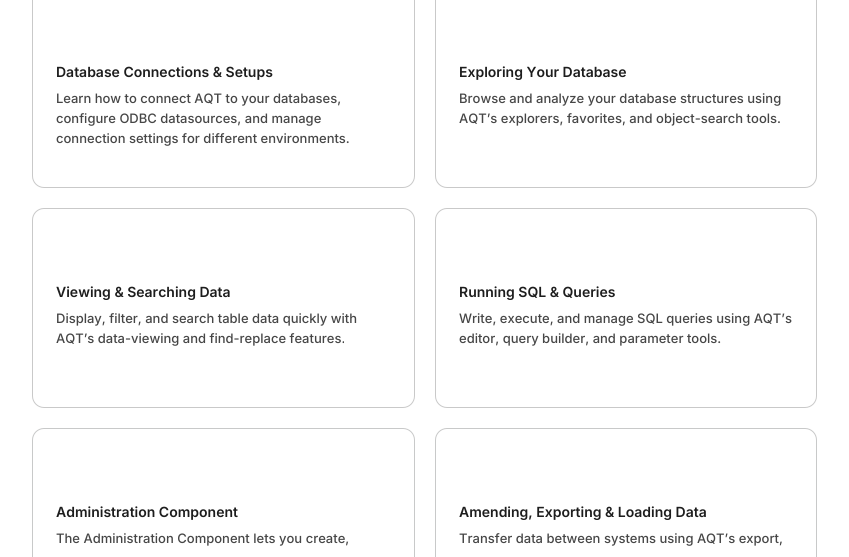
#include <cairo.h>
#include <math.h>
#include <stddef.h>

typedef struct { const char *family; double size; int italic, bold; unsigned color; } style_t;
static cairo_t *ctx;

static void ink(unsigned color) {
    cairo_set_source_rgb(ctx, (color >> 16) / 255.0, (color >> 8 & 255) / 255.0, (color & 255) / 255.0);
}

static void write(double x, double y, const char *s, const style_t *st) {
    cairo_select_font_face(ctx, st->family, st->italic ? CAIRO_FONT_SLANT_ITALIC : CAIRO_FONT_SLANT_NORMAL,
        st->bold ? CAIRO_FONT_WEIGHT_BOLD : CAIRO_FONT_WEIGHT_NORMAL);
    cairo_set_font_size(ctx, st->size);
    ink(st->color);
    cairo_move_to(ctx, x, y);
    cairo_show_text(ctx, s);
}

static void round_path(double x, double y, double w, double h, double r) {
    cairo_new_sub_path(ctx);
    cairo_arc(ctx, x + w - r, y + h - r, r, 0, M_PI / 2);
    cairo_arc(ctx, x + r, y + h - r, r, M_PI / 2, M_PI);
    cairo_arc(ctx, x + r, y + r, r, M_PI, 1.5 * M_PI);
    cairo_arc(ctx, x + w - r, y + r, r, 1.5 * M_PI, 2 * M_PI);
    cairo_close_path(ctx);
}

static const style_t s1 = {"Inter SemiBold", 14, 0, 0, 0x1d1d1d};
static const style_t s2 = {"Inter Medium", 13, 0, 0, 0x464646};

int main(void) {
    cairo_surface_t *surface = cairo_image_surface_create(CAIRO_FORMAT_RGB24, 849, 557);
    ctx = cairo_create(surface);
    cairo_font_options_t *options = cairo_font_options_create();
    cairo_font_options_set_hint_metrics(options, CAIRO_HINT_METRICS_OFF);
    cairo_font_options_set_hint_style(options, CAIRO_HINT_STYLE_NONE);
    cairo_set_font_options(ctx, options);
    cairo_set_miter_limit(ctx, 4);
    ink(0xffffff);
    cairo_paint(ctx);
    round_path(32.5, -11.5, 382, 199, 11.5);
    ink(0xc9c9c9);
    cairo_set_line_width(ctx, 1);
    cairo_stroke(ctx);
    write(56, 77, "Database Connections & Setups", &s1);
    write(56, 103, "Learn how to connect AQT to your databases,", &s2);
    write(56, 123, "configure ODBC datasources, and manage", &s2);
    write(56, 143, "connection settings for different environments.", &s2);
    round_path(435.5, -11.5, 381, 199, 11.5);
    ink(0xc9c9c9);
    cairo_stroke(ctx);
    write(459, 77, "Exploring Your Database", &s1);
    write(459, 103, "Browse and analyze your database structures using", &s2);
    write(459, 123, "AQT’s explorers, favorites, and object-search tools.", &s2);
    round_path(32.5, 208.5, 382, 199, 11.5);
    ink(0xc9c9c9);
    cairo_stroke(ctx);
    write(56, 297, "Viewing & Searching Data", &s1);
    write(56, 323, "Display, filter, and search table data quickly with", &s2);
    write(56, 343, "AQT’s data-viewing and find-replace features.", &s2);
    round_path(435.5, 208.5, 381, 199, 11.5);
    ink(0xc9c9c9);
    cairo_stroke(ctx);
    write(459, 297, "Running SQL & Queries", &s1);
    write(459, 323, "Write, execute, and manage SQL queries using AQT’s", &s2);
    write(459, 343, "editor, query builder, and parameter tools.", &s2);
    round_path(32.5, 428.5, 382, 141, 11.5);
    ink(0xc8c9c9);
    cairo_stroke(ctx);
    write(56, 517, "Administration Component", &s1);
    write(56, 543, "The Administration Component lets you create,", &s2);
    round_path(435.5, 428.5, 381, 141, 11.5);
    ink(0xc8c9c9);
    cairo_stroke(ctx);
    write(459, 517, "Amending, Exporting & Loading Data", &s1);
    write(459, 543, "Transfer data between systems using AQT’s export,", &s2);
    cairo_surface_write_to_png(surface, "screenshot.png");
    cairo_font_options_destroy(options);
    cairo_destroy(ctx);
    cairo_surface_destroy(surface);
    return 0;
}
